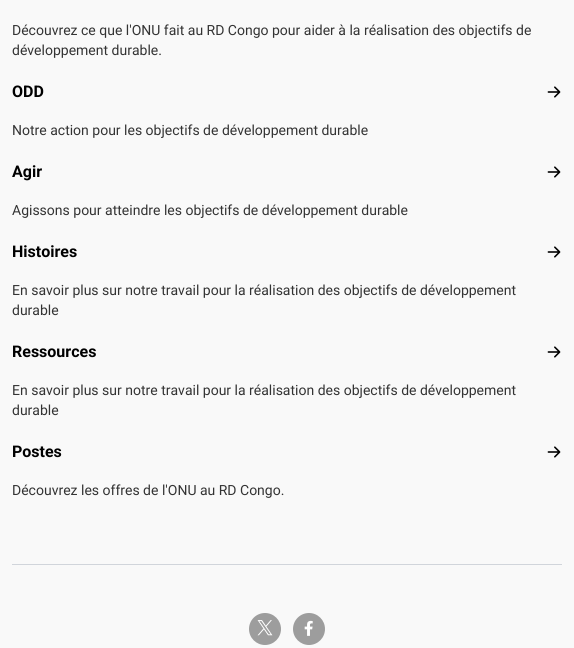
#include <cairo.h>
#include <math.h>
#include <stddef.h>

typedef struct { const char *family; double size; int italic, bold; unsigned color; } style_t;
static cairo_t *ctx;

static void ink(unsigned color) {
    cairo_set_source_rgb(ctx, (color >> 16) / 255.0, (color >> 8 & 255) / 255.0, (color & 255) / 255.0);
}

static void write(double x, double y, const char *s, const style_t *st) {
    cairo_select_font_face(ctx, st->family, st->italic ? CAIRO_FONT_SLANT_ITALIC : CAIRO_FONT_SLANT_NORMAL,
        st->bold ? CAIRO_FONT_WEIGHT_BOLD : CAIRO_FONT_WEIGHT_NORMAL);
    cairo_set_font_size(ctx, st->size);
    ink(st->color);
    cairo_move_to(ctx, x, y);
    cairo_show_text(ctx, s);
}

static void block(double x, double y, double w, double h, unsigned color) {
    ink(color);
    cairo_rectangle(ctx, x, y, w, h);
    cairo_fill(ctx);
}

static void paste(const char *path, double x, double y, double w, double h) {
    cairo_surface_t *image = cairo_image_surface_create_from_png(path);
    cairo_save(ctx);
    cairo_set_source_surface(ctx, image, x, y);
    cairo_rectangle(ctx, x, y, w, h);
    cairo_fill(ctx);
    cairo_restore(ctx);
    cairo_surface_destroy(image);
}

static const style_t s1 = {"Roboto", 14, 0, 0, 0x333333};
static const style_t s2 = {"Roboto", 16, 0, 1, 0x000000};

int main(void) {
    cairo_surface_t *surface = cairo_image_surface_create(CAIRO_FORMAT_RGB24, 574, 648);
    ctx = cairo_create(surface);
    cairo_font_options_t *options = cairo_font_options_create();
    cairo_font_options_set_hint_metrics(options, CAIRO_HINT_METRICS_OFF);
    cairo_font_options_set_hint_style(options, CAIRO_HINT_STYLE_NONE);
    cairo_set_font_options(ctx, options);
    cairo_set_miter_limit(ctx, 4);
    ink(0xf9f9f9);
    cairo_paint(ctx);
    write(12, 35, "Découvrez ce que l'ONU fait au RD Congo pour aider à la réalisation des objectifs de", &s1);
    write(12, 55, "développement durable.", &s1);
    write(12, 97, "ODD", &s2);
    paste("pic1.png", 547, 86, 14, 12);
    write(12, 135, "Notre action pour les objectifs de développement durable", &s1);
    write(12, 177, "Agir", &s2);
    paste("pic1.png", 547, 166, 14, 12);
    write(12, 215, "Agissons pour atteindre les objectifs de développement durable", &s1);
    write(12, 257, "Histoires", &s2);
    paste("pic1.png", 547, 246, 14, 12);
    write(12, 295, "En savoir plus sur notre travail pour la réalisation des objectifs de développement", &s1);
    write(12, 315, "durable", &s1);
    write(12, 357, "Ressources", &s2);
    paste("pic1.png", 547, 346, 14, 12);
    write(12, 395, "En savoir plus sur notre travail pour la réalisation des objectifs de développement", &s1);
    write(12, 415, "durable", &s1);
    write(12, 457, "Postes", &s2);
    paste("pic1.png", 547, 446, 14, 12);
    write(12, 495, "Découvrez les offres de l'ONU au RD Congo.", &s1);
    block(12, 564, 550, 1, 0xd1d5db);
    ink(0x9d9d9d);
    cairo_new_path(ctx);
    cairo_arc(ctx, 265, 629, 16, 0, 2 * M_PI);
    cairo_fill(ctx);
    paste("pic2.png", 257, 620, 16, 16);
    cairo_arc(ctx, 309, 629, 16, 0, 2 * M_PI);
    cairo_fill(ctx);
    paste("pic3.png", 304, 620, 9, 16);
    cairo_surface_write_to_png(surface, "screenshot.png");
    cairo_font_options_destroy(options);
    cairo_destroy(ctx);
    cairo_surface_destroy(surface);
    return 0;
}
